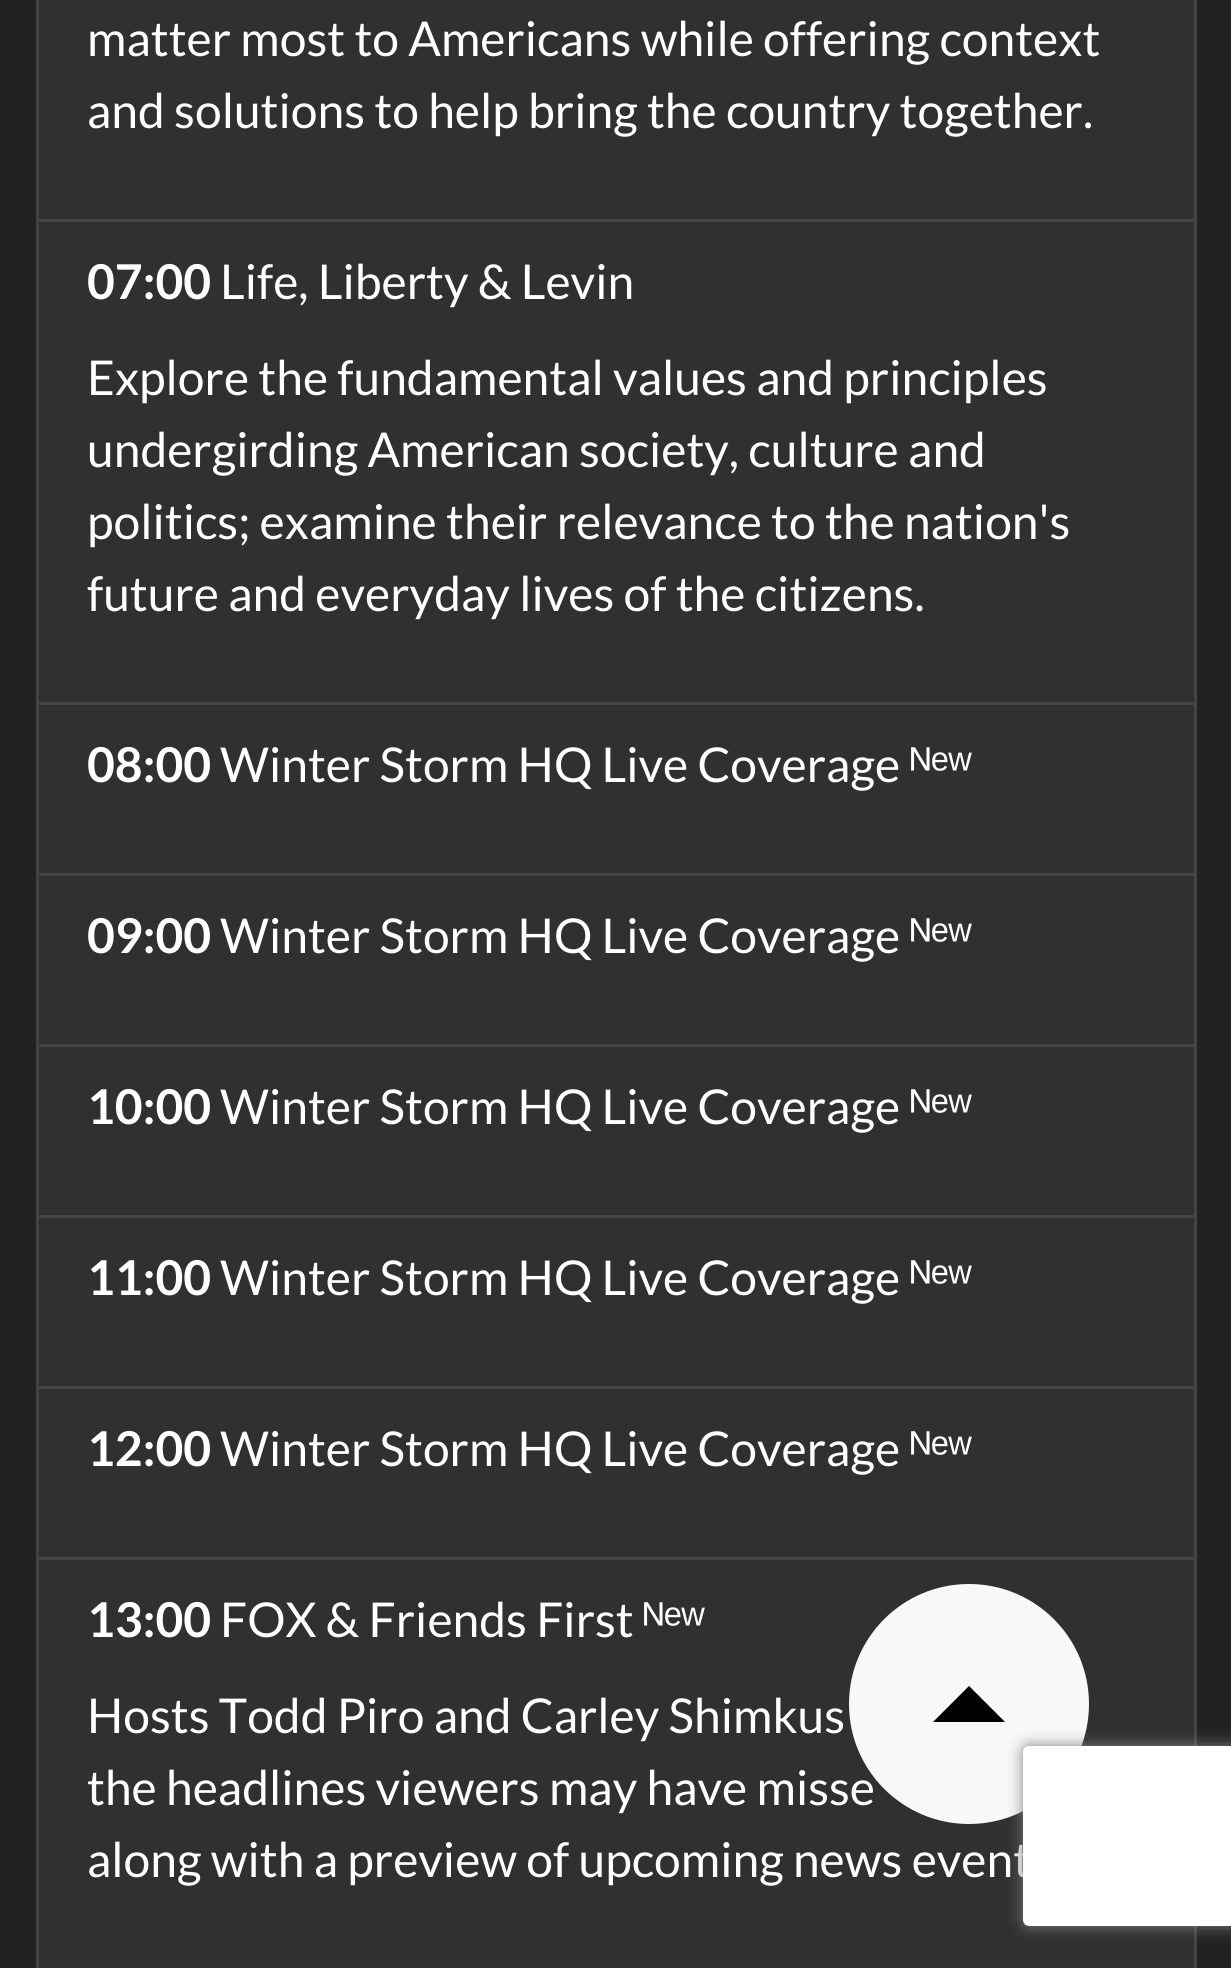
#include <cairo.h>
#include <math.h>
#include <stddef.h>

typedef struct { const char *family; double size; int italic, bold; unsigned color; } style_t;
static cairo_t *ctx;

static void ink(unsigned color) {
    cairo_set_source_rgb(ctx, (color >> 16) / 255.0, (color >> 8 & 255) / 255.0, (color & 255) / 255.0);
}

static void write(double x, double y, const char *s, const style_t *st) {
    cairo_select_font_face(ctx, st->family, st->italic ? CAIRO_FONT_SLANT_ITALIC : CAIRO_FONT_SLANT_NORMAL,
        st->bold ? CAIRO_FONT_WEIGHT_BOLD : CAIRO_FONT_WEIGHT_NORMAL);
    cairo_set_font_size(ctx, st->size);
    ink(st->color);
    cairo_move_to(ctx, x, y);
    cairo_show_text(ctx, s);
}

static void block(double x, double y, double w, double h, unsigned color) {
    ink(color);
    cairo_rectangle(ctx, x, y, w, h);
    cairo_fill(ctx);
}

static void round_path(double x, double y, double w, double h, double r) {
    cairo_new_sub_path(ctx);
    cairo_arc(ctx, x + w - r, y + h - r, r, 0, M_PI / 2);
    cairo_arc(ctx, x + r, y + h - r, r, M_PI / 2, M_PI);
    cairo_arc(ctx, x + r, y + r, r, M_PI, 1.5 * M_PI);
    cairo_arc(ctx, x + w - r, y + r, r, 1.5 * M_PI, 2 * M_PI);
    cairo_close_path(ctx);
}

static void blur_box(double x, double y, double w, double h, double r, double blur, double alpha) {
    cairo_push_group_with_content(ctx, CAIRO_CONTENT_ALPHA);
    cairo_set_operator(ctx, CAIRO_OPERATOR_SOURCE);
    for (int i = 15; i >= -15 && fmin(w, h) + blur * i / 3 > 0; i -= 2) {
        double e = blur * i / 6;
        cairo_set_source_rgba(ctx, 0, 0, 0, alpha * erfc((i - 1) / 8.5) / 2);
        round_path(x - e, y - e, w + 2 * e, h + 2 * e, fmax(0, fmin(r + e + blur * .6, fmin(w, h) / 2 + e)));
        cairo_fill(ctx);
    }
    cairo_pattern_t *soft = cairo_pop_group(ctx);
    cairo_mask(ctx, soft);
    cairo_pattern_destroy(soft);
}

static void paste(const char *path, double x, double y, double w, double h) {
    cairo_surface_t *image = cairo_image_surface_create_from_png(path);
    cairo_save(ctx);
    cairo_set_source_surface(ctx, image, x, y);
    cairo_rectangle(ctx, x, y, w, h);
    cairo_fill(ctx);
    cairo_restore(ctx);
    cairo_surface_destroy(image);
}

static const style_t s1 = {"Lato", 48, 0, 0, 0xffffff};
static const style_t s2 = {"Lato", 48, 0, 1, 0xffffff};
static const style_t s3 = {"Liberation Sans", 48, 0, 0, 0xffffff};

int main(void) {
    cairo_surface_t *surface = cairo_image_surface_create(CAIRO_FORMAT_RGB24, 1231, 1968);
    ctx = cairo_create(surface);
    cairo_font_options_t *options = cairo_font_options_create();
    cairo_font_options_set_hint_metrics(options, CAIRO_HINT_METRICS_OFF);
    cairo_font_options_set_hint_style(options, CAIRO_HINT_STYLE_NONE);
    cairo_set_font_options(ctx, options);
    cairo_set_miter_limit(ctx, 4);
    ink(0x222222);
    cairo_paint(ctx);
    block(39, 0, 1155, 219, 0x303030);
    block(1194, 0, 3, 1968, 0x444444);
    block(36, 219, 1161, 3, 0x444444);
    block(36, 0, 3, 222, 0x444444);
    write(87, 56, "matter most to Americans while offering context", &s1);
    write(87, 128, "and solutions to help bring the country together.", &s1);
    block(39, 222, 1155, 480, 0x303030);
    block(36, 702, 1161, 3, 0x444444);
    block(36, 222, 3, 483, 0x444444);
    write(87, 299, "07:00", &s2);
    write(220, 299, "Life, Liberty & Levin", &s1);
    write(87, 395, "Explore the fundamental values and principles", &s1);
    write(87, 467, "undergirding American society, culture and", &s1);
    write(87, 539, "politics; examine their relevance to the nation's", &s1);
    write(87, 611, "future and everyday lives of the citizens.", &s1);
    block(39, 705, 1155, 168, 0x303030);
    block(36, 873, 1161, 3, 0x444444);
    block(36, 705, 3, 171, 0x444444);
    write(87, 782, "08:00", &s2);
    write(220, 782, "Winter Storm HQ Live Coverage", &s1);
    write(910, 782, "ᴺᵉʷ", &s3);
    block(39, 876, 1155, 168, 0x303030);
    block(36, 1044, 1161, 3, 0x444444);
    block(36, 876, 3, 171, 0x444444);
    write(87, 953, "09:00", &s2);
    write(220, 953, "Winter Storm HQ Live Coverage", &s1);
    write(910, 953, "ᴺᵉʷ", &s3);
    block(39, 1047, 1155, 168, 0x303030);
    block(36, 1215, 1161, 3, 0x444444);
    block(36, 1047, 3, 171, 0x444444);
    write(87, 1124, "10:00", &s2);
    write(220, 1124, "Winter Storm HQ Live Coverage", &s1);
    write(910, 1124, "ᴺᵉʷ", &s3);
    block(39, 1218, 1155, 168, 0x303030);
    block(36, 1386, 1161, 3, 0x444444);
    block(36, 1218, 3, 171, 0x444444);
    write(87, 1295, "11:00", &s2);
    write(220, 1295, "Winter Storm HQ Live Coverage", &s1);
    write(910, 1295, "ᴺᵉʷ", &s3);
    block(39, 1389, 1155, 168, 0x303030);
    block(36, 1557, 1161, 3, 0x444444);
    block(36, 1389, 3, 579, 0x444444);
    write(87, 1466, "12:00", &s2);
    write(220, 1466, "Winter Storm HQ Live Coverage", &s1);
    write(910, 1466, "ᴺᵉʷ", &s3);
    block(39, 1560, 1155, 408, 0x303030);
    write(87, 1637, "13:00", &s2);
    write(220, 1637, "FOX & Friends First", &s1);
    write(643, 1637, "ᴺᵉʷ", &s3);
    write(87, 1733, "Hosts Todd Piro and Carley Shimkus", &s1);
    write(87, 1805, "the headlines viewers may have misse", &s1);
    write(87, 1877, "along with a preview of upcoming news event", &s1);
    ink(0xf8f8f8);
    cairo_new_path(ctx);
    cairo_arc(ctx, 969, 1704, 120, 0, 2 * M_PI);
    cairo_fill(ctx);
    ink(0x000000);
    cairo_new_path(ctx);
    cairo_move_to(ctx, 1005, 1722);
    cairo_line_to(ctx, 933, 1722);
    cairo_line_to(ctx, 969, 1686);
    cairo_close_path(ctx);
    cairo_fill(ctx);
    ink(0x808080);
    blur_box(1023, 1746, 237, 180, 6, 7.5, 1);
    paste("pic1.png", 1023, 1746, 208, 180);
    cairo_surface_write_to_png(surface, "screenshot.png");
    cairo_font_options_destroy(options);
    cairo_destroy(ctx);
    cairo_surface_destroy(surface);
    return 0;
}
